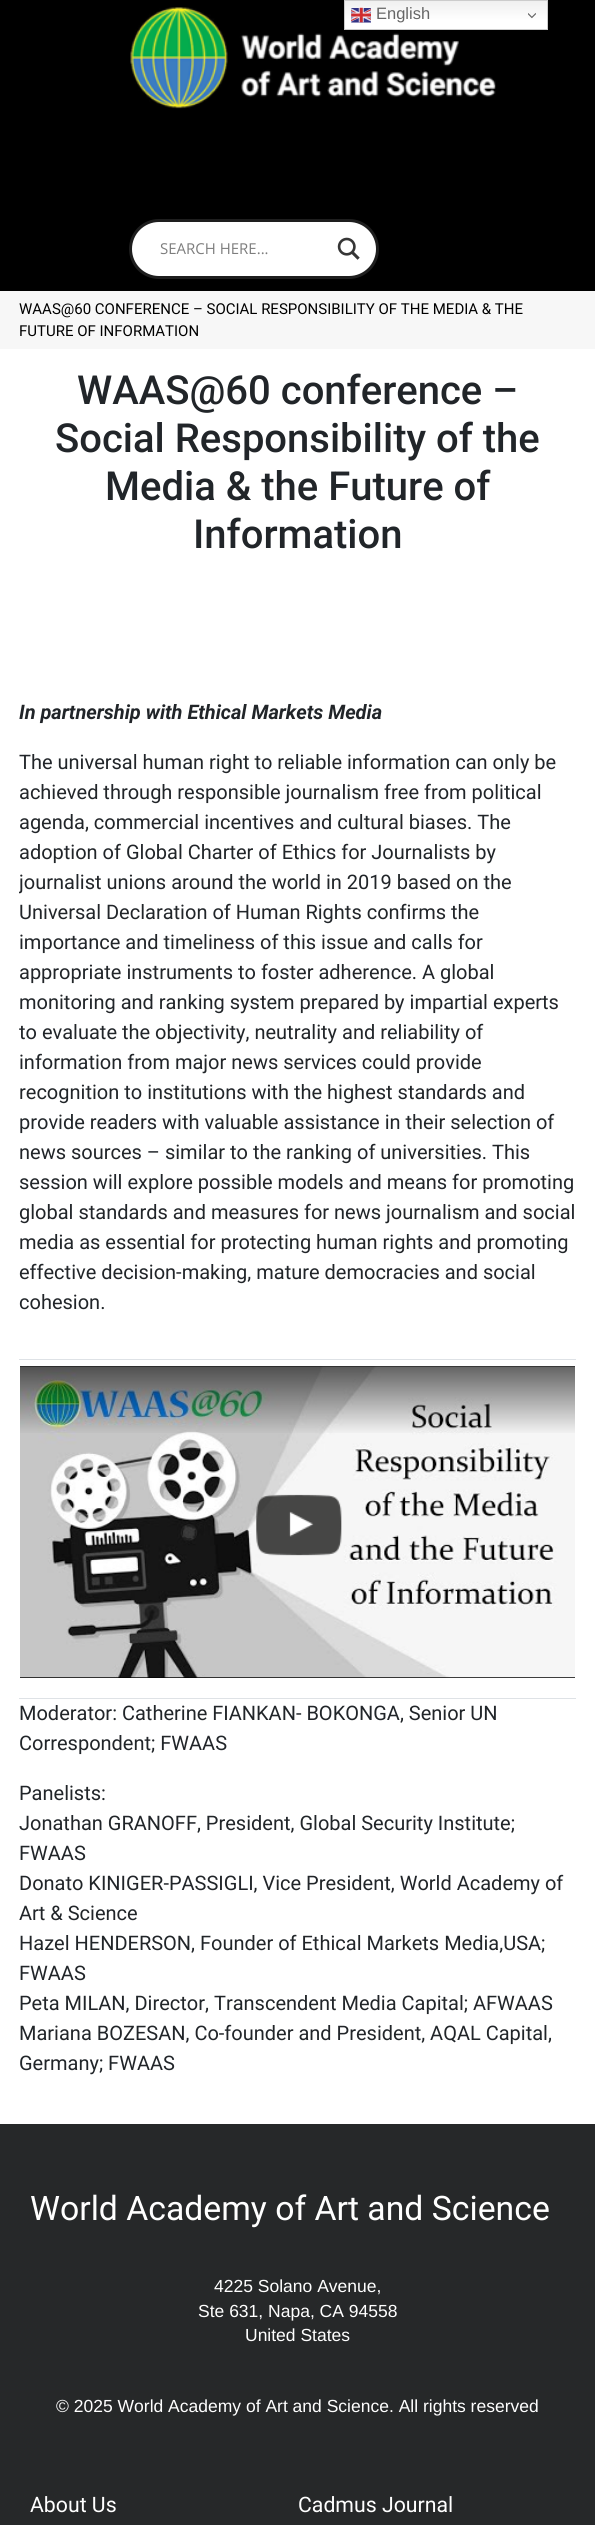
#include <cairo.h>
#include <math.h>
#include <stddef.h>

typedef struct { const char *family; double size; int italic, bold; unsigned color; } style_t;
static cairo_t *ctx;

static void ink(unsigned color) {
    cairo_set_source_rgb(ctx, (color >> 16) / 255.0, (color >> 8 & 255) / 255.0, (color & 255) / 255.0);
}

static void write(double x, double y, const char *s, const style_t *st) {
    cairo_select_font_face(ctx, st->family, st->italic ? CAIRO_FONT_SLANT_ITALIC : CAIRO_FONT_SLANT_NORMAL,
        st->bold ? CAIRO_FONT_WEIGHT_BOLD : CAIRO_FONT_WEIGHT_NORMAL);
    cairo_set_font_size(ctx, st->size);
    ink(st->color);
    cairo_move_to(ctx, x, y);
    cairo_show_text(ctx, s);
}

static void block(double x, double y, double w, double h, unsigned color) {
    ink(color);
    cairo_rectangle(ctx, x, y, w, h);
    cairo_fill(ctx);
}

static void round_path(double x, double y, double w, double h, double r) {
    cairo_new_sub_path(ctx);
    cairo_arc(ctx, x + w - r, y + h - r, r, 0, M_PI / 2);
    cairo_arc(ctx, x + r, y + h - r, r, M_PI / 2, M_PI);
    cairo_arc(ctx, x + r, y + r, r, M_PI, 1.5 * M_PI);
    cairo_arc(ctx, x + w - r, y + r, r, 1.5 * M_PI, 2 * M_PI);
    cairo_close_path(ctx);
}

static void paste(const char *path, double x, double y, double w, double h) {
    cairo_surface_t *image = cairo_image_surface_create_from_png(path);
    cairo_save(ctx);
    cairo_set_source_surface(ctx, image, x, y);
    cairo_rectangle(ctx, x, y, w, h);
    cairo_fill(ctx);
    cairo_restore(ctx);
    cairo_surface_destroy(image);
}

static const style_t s1 = {"Liberation Sans", 16.5, 0, 0, 0x666666};
static const style_t s2 = {"Open Sans", 15, 0, 0, 0x7d7d7d};
static const style_t s3 = {"Roboto", 15, 0, 0, 0x000000};
static const style_t s4 = {"Roboto Medium", 40, 0, 0, 0x212529};
static const style_t s5 = {"Roboto", 20, 1, 1, 0x212529};
static const style_t s6 = {"Roboto", 20, 0, 0, 0x212529};
static const style_t s7 = {"Roboto", 33.75, 0, 0, 0xffffff};
static const style_t s8 = {"Liberation Sans", 17.5, 0, 0, 0xffffff};
static const style_t s9 = {"Roboto", 21.25, 0, 0, 0xffffff};

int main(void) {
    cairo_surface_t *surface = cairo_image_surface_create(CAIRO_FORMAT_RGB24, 595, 2525);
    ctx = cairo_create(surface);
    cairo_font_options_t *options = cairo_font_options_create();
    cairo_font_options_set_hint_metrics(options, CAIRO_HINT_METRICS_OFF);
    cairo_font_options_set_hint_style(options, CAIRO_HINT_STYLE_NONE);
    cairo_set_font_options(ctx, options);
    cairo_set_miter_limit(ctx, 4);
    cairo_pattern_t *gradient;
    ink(0xffffff);
    cairo_paint(ctx);
    block(0, 0, 595, 291, 0x000000);
    paste("pic3.png", 130, 7, 366, 102);
    gradient = cairo_pattern_create_linear(446, 0, 446, 30);
    cairo_pattern_add_color_stop_rgba(gradient, 0, 0.937, 0.937, 0.937, 1);
    cairo_pattern_add_color_stop_rgba(gradient, 0.7, 1, 1, 1, 1);
    cairo_set_source(ctx, gradient);
    cairo_pattern_destroy(gradient);
    cairo_rectangle(ctx, 345, 1, 202, 28);
    cairo_fill(ctx);
    cairo_rectangle(ctx, 344.5, 0.5, 203, 29);
    ink(0xcccccc);
    cairo_set_line_width(ctx, 1);
    cairo_stroke(ctx);
    paste("pic1.png", 351, 7, 20, 16);
    write(376, 19, "English", &s1);
    paste("pic2.png", 528, 13, 8, 6);
    ink(0xffffff);
    round_path(130.5, 220.5, 247, 57, 28.5);
    cairo_fill_preserve(ctx);
    ink(0x1e1e1e);
    cairo_set_line_width(ctx, 3);
    cairo_stroke(ctx);
    write(160, 254, "SEARCH HERE...", &s2);
    paste("pic4.png", 337, 237, 23, 23);
    block(0, 291, 595, 58, 0xf7f7f7);
    write(19, 314, "WAAS@60 CONFERENCE – SOCIAL RESPONSIBILITY OF THE MEDIA & THE", &s3);
    write(19, 336, "FUTURE OF INFORMATION", &s3);
    write(77, 404, "WAAS@60 conference –", &s4);
    write(55, 452, "Social Responsibility of the", &s4);
    write(105, 500, "Media & the Future of", &s4);
    write(193, 548, "Information", &s4);
    write(19, 719, "In partnership with Ethical Markets Media", &s5);
    write(19, 769, "The universal human right to reliable information can only be", &s6);
    write(19, 799, "achieved through responsible journalism free from political", &s6);
    write(19, 829, "agenda, commercial incentives and cultural biases. The", &s6);
    write(19, 859, "adoption of Global Charter of Ethics for Journalists by", &s6);
    cairo_save(ctx);
    cairo_rectangle(ctx, 19, 638, 557, 1461);
    cairo_clip(ctx);
    write(19, 889, "journalist unions around the world in 2019 based on the", &s6);
    cairo_restore(ctx);
    write(19, 919, "Universal Declaration of Human Rights confirms the", &s6);
    write(19, 949, "importance and timeliness of this issue and calls for", &s6);
    write(19, 979, "appropriate instruments to foster adherence. A global", &s6);
    write(19, 1009, "monitoring and ranking system prepared by impartial experts", &s6);
    write(19, 1039, "to evaluate the objectivity, neutrality and reliability of", &s6);
    write(19, 1069, "information from major news services could provide", &s6);
    write(19, 1099, "recognition to institutions with the highest standards and", &s6);
    write(19, 1129, "provide readers with valuable assistance in their selection of", &s6);
    write(19, 1159, "news sources – similar to the ranking of universities. This", &s6);
    write(19, 1189, "session will explore possible models and means for promoting", &s6);
    write(19, 1219, "global standards and measures for news journalism and social", &s6);
    write(19, 1249, "media as essential for protecting human rights and promoting", &s6);
    write(19, 1279, "effective decision-making, mature democracies and social", &s6);
    write(19, 1309, "cohesion.", &s6);
    cairo_save(ctx);
    cairo_rectangle(ctx, 19, 638, 557, 1461);
    cairo_clip(ctx);
    cairo_rectangle(ctx, 0.5, 1359.5, 594, 339);
    ink(0xdee2e6);
    cairo_set_line_width(ctx, 1);
    cairo_stroke(ctx);
    cairo_restore(ctx);
    block(20, 1366, 555, 312, 0x000000);
    paste("pic5.png", 20, 1366, 555, 312);
    gradient = cairo_pattern_create_linear(298, 1366, 298, 1435);
    cairo_pattern_add_color_stop_rgba(gradient, 0, 0, 0, 0, 0.6);
    cairo_pattern_add_color_stop_rgba(gradient, 1, 0, 0, 0, 0);
    cairo_set_source(ctx, gradient);
    cairo_pattern_destroy(gradient);
    cairo_rectangle(ctx, 20, 1366, 555, 67);
    cairo_fill(ctx);
    paste("pic6.png", 256, 1494, 86, 62);
    write(19, 1720, "Moderator: Catherine FIANKAN- BOKONGA, Senior UN", &s6);
    write(19, 1750, "Correspondent; FWAAS", &s6);
    write(19, 1800, "Panelists:", &s6);
    write(19, 1830, "Jonathan GRANOFF, President, Global Security Institute;", &s6);
    write(19, 1860, "FWAAS", &s6);
    write(19, 1890, "Donato KINIGER-PASSIGLI, Vice President, World Academy of", &s6);
    write(19, 1920, "Art & Science", &s6);
    write(19, 1950, "Hazel HENDERSON, Founder of Ethical Markets Media,USA;", &s6);
    write(19, 1980, "FWAAS", &s6);
    write(19, 2010, "Peta MILAN, Director, Transcendent Media Capital; AFWAAS", &s6);
    write(19, 2040, "Mariana BOZESAN, Co-founder and President, AQAL Capital,", &s6);
    write(19, 2070, "Germany; FWAAS", &s6);
    block(0, 2124, 595, 401, 0x262829);
    write(30, 2220, "World Academy of Art and Science", &s7);
    write(214, 2292, "4225 Solano Avenue,", &s8);
    write(198, 2317, "Ste 631, Napa, CA 94558", &s8);
    write(245, 2341, "United States", &s8);
    write(56, 2412, "© 2025 World Academy of Art and Science. All rights reserved", &s8);
    write(30, 2512, "About Us", &s9);
    write(298, 2512, "Cadmus Journal", &s9);
    cairo_surface_write_to_png(surface, "screenshot.png");
    cairo_font_options_destroy(options);
    cairo_destroy(ctx);
    cairo_surface_destroy(surface);
    return 0;
}
